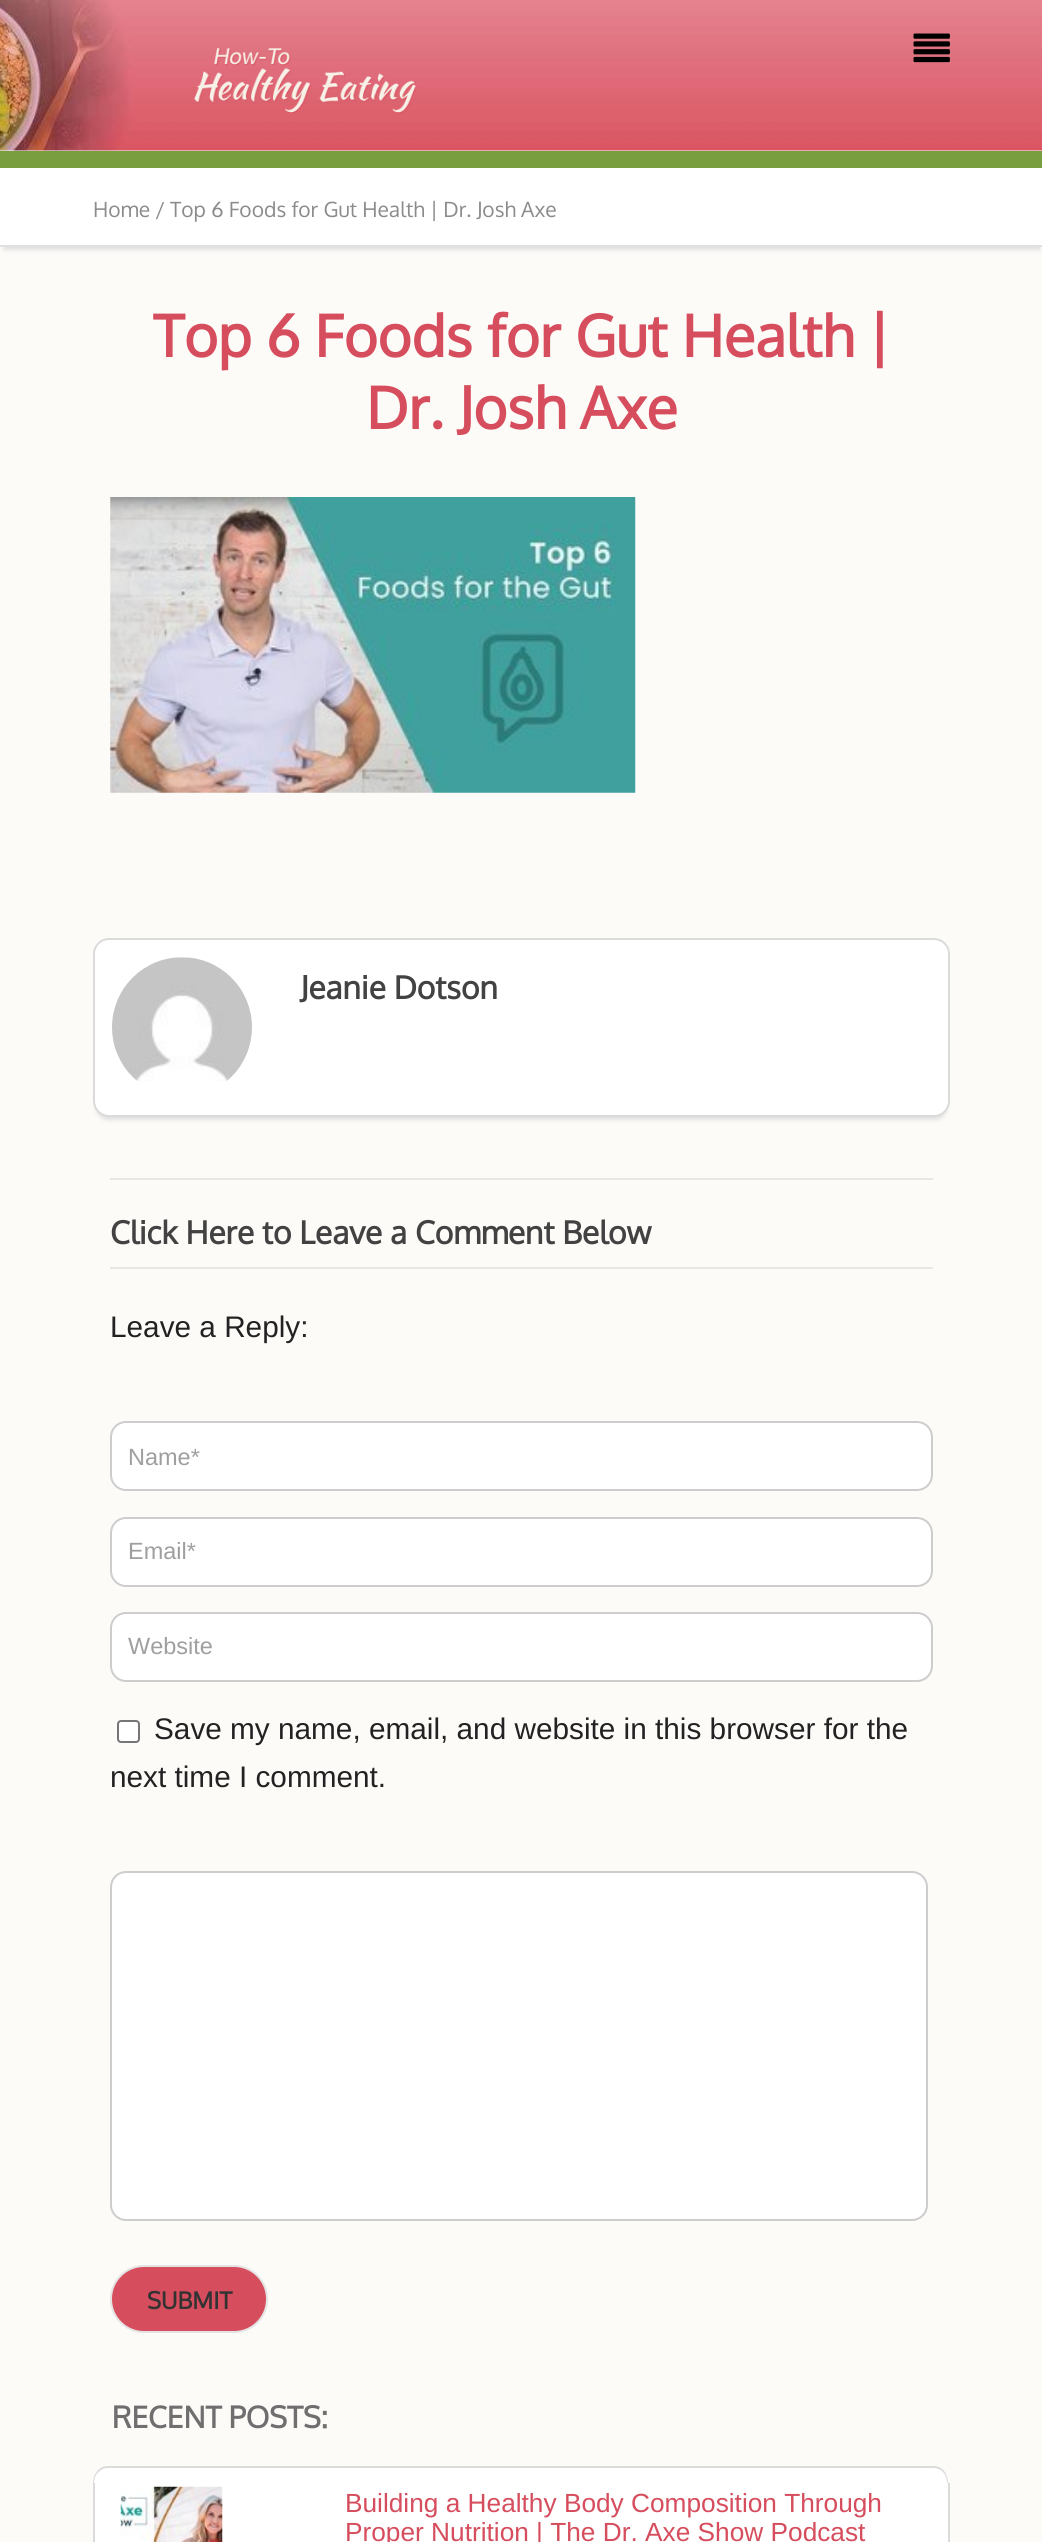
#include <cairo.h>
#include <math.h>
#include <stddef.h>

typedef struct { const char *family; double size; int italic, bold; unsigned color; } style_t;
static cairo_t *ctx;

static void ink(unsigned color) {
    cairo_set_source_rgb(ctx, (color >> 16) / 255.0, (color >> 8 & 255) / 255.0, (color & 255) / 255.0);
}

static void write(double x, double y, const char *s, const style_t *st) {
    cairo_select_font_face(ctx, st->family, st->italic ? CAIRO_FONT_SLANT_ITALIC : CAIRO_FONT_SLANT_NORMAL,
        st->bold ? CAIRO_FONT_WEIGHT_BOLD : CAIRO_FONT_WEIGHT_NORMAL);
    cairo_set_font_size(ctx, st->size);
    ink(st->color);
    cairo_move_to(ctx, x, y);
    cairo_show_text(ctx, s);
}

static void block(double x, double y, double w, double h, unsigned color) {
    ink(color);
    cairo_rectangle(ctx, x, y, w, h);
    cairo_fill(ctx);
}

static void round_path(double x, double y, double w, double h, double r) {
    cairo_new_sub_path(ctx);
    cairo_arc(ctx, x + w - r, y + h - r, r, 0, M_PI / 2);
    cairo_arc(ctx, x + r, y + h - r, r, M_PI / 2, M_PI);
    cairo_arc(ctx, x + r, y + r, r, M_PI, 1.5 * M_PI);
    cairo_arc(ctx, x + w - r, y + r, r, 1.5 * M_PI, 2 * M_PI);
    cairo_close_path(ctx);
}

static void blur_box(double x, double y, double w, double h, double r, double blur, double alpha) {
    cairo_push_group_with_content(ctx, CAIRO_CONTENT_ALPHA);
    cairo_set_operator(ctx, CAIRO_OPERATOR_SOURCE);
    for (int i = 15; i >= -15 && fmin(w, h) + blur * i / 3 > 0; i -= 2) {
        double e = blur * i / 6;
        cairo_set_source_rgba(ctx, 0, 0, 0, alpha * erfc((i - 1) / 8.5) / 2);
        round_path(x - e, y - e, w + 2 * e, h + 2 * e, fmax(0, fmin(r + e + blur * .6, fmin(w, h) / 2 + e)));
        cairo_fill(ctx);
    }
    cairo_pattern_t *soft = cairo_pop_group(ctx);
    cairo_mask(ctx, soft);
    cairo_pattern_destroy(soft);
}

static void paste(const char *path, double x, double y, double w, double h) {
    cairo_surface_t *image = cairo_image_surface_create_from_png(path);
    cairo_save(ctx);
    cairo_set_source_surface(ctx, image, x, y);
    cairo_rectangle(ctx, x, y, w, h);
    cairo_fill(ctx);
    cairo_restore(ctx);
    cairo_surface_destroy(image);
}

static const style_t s1 = {"Oxygen", 21, 0, 0, 0x8b8b8b};
static const style_t s2 = {"Oxygen", 57.75, 0, 1, 0xd64d5d};
static const style_t s3 = {"Oxygen", 31.6, 0, 1, 0x424242};
static const style_t s4 = {"Liberation Sans", 29.75, 0, 0, 0x222222};
static const style_t s5 = {"Liberation Sans", 23.5, 0, 0, 0x9f9f9f};
static const style_t s6 = {"Oxygen", 23.5, 0, 1, 0x323232};
static const style_t s7 = {"Oxygen", 29.75, 0, 1, 0x706f6f};
static const style_t s8 = {"Liberation Sans", 26.25, 0, 0, 0xd64d5d};

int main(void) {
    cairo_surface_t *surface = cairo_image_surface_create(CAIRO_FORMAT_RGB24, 1042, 2542);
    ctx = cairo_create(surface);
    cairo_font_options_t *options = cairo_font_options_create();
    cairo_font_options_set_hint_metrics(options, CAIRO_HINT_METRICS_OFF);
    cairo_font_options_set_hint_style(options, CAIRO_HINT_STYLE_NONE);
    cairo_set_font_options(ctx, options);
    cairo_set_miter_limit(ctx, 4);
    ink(0xfdfbf8);
    cairo_paint(ctx);
    block(0, 151, 1042, 17, 0x799e3f);
    block(0, 150, 1042, 1, 0xffffff);
    paste("pic1.png", 0, 0, 1042, 151);
    paste("pic2.png", 194, 48, 223, 66);
    paste("pic3.png", 913, 33, 37, 30);
    ink(0xe0e0e0);
    blur_box(4, 179, 1036, 71, 0, 2, 1);
    block(0, 168, 1042, 77, 0xffffff);
    block(0, 245, 1042, 2, 0xe0e0e0);
    write(93, 217, "Home /", &s1);
    write(170, 217, "Top 6 Foods for Gut Health | Dr. Josh Axe", &s1);
    write(153, 357, "Top 6 Foods for Gut Health |", &s2);
    write(366, 429, "Dr. Josh Axe", &s2);
    paste("pic4.png", 110, 497, 526, 296);
    ink(0xe0e0e0);
    blur_box(96, 949, 851, 171, 12, 2, 1);
    ink(0xffffff);
    round_path(94, 939, 855, 177, 15);
    cairo_fill_preserve(ctx);
    ink(0xdbdbdb);
    cairo_stroke(ctx);
    paste("pic5.png", 112, 957, 140, 124);
    write(300, 999, "Jeanie Dotson", &s3);
    block(110, 1178, 823, 2, 0xe7e7e7);
    write(110, 1244, "Click Here to Leave a Comment Below", &s3);
    block(110, 1267, 823, 2, 0xe7e7e7);
    write(110, 1337, "Leave a Reply:", &s4);
    ink(0xffffff);
    round_path(111, 1422, 821, 68, 15);
    cairo_fill_preserve(ctx);
    ink(0xcdcdcd);
    cairo_stroke(ctx);
    write(128, 1465, "Name*", &s5);
    ink(0xffffff);
    round_path(111, 1518, 821, 68, 15);
    cairo_fill_preserve(ctx);
    ink(0xcdcdcd);
    cairo_stroke(ctx);
    write(128, 1559, "Email*", &s5);
    ink(0xffffff);
    round_path(111, 1613, 821, 68, 15);
    cairo_fill_preserve(ctx);
    ink(0xcdcdcd);
    cairo_stroke(ctx);
    write(128, 1654, "Website", &s5);
    ink(0xffffff);
    round_path(118, 1721, 21, 21, 3);
    cairo_fill_preserve(ctx);
    ink(0x767676);
    cairo_stroke(ctx);
    write(154, 1739, "Save my name, email, and website in this browser for the", &s4);
    write(110, 1787, "next time I comment.", &s4);
    ink(0xffffff);
    round_path(111, 1872, 816, 348, 15);
    cairo_fill_preserve(ctx);
    ink(0xcdcdcd);
    cairo_stroke(ctx);
    ink(0xd64d5d);
    round_path(111, 2266, 156, 66, 33);
    cairo_fill_preserve(ctx);
    ink(0xe3e3e3);
    cairo_stroke(ctx);
    write(147, 2309, "SUBMIT", &s6);
    block(95, 2483, 853, 59, 0xffffff);
    cairo_rectangle(ctx, 94, 2404, 855, 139);
    ink(0xdbdbdb);
    cairo_stroke(ctx);
    block(93, 2403, 857, 80, 0xfdfbf8);
    write(112, 2428, "RECENT POSTS:", &s7);
    ink(0xffffff);
    cairo_new_path(ctx);
    cairo_move_to(ctx, 109, 2466);
    cairo_line_to(ctx, 933, 2466);
    cairo_curve_to(ctx, 942, 2466, 949, 2473, 949, 2482);
    cairo_line_to(ctx, 949, 2483);
    cairo_line_to(ctx, 93, 2483);
    cairo_line_to(ctx, 93, 2482);
    cairo_curve_to(ctx, 93, 2473, 100, 2466, 109, 2466);
    cairo_close_path(ctx);
    cairo_fill(ctx);
    ink(0xdbdbdb);
    cairo_set_fill_rule(ctx, CAIRO_FILL_RULE_EVEN_ODD);
    cairo_new_path(ctx);
    cairo_move_to(ctx, 108, 2466);
    cairo_line_to(ctx, 933, 2466);
    cairo_curve_to(ctx, 943, 2466, 948, 2474, 948, 2483);
    cairo_line_to(ctx, 93, 2483);
    cairo_curve_to(ctx, 93, 2474, 99, 2466, 108, 2466);
    cairo_close_path(ctx);
    cairo_move_to(ctx, 108, 2468);
    cairo_line_to(ctx, 933, 2468);
    cairo_curve_to(ctx, 942, 2468, 947, 2475, 947, 2483);
    cairo_line_to(ctx, 94, 2483);
    cairo_curve_to(ctx, 94, 2475, 100, 2468, 108, 2468);
    cairo_close_path(ctx);
    cairo_fill(ctx);
    paste("pic6.png", 120, 2486, 103, 56);
    write(345, 2512, "Building a Healthy Body Composition Through", &s8);
    write(345, 2541, "Proper Nutrition | The Dr. Axe Show Podcast", &s8);
    cairo_surface_write_to_png(surface, "screenshot.png");
    cairo_font_options_destroy(options);
    cairo_destroy(ctx);
    cairo_surface_destroy(surface);
    return 0;
}
